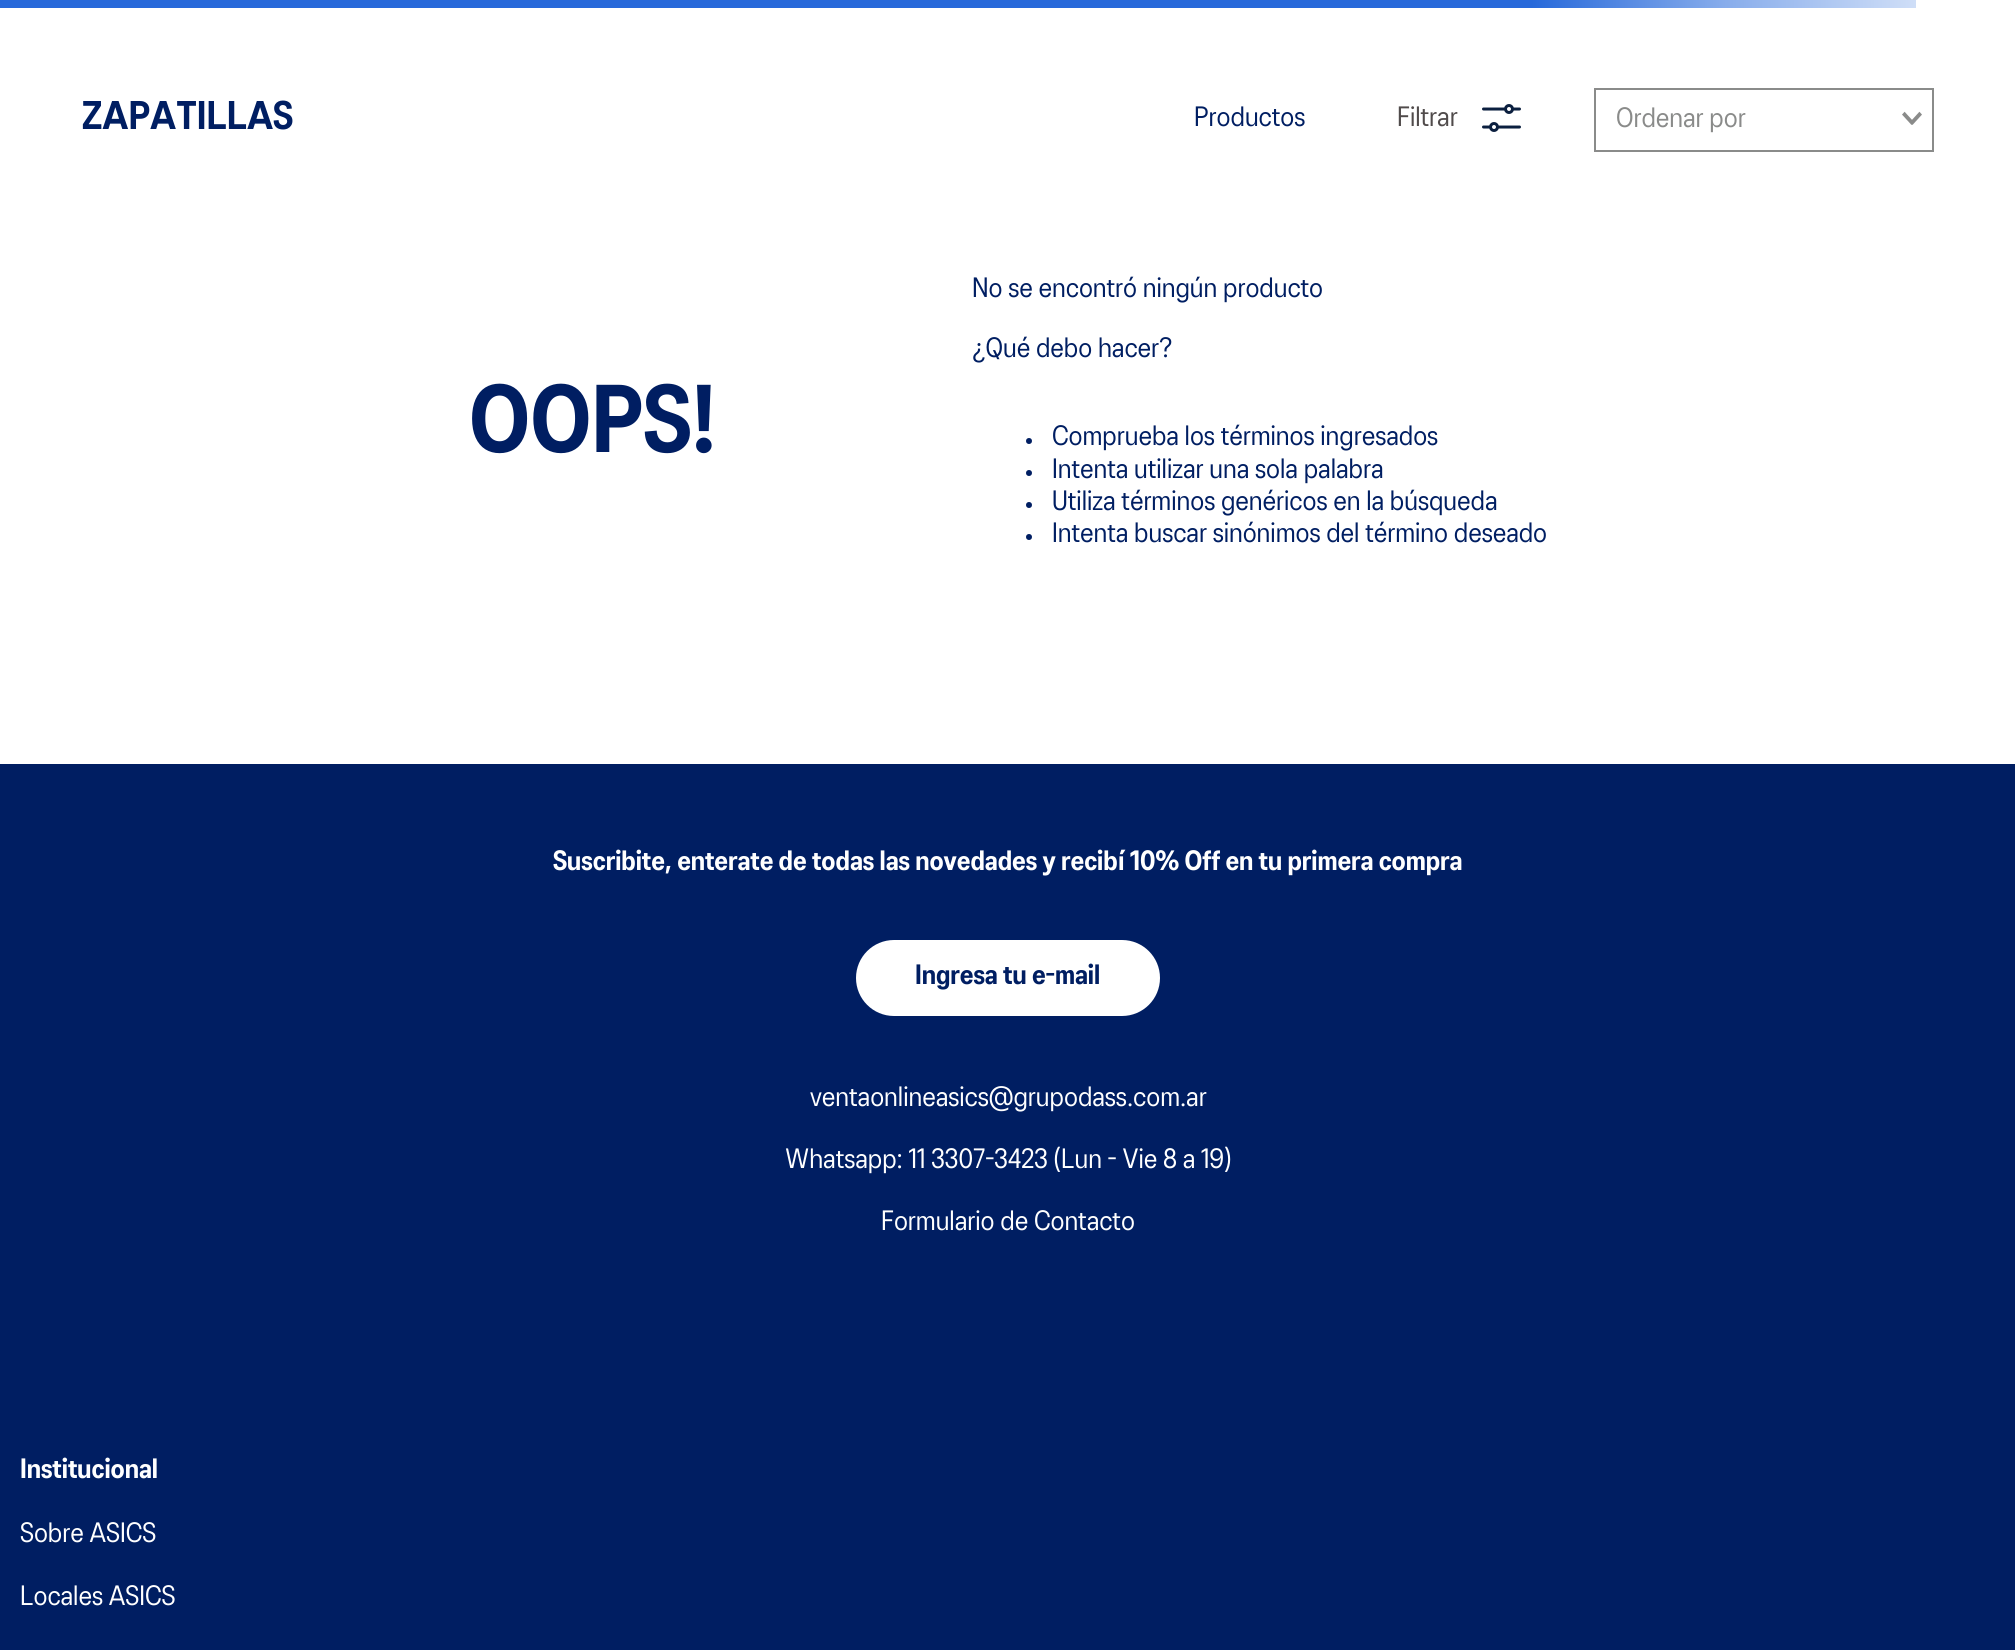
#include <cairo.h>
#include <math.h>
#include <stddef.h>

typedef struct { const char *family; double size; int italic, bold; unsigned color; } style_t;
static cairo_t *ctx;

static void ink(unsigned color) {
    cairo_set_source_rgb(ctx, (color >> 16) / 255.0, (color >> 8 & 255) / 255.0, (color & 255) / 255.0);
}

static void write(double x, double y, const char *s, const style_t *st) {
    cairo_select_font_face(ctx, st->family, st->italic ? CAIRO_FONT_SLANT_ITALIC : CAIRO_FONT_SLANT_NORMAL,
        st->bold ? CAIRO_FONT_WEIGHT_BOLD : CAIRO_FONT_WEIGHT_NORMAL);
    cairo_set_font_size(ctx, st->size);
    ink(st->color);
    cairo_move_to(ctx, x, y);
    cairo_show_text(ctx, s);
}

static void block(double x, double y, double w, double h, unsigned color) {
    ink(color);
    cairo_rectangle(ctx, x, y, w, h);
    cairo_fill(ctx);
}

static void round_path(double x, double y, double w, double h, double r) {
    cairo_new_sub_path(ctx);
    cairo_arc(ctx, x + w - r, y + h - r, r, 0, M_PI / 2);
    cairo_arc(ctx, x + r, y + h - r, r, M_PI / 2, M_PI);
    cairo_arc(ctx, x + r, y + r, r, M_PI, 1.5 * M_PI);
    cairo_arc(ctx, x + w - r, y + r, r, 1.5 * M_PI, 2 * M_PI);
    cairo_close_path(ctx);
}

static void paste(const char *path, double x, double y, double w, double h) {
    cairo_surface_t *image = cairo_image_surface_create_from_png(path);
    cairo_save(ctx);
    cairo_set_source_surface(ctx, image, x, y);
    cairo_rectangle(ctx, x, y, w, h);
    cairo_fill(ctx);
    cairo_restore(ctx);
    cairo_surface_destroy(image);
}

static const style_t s1 = {"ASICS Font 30", 40, 0, 1, 0x001e62};
static const style_t s2 = {"ASICS Font 30", 28, 0, 0, 0x001e62};
static const style_t s3 = {"ASICS Font 30", 28, 0, 0, 0x504b4b};
static const style_t s4 = {"ASICS Font 30", 28, 0, 0, 0x8a8b8a};
static const style_t s5 = {"ASICS Font 30", 96, 0, 1, 0x001e62};
static const style_t s6 = {"ASICS Font 30", 28, 0, 1, 0xffffff};
static const style_t s7 = {"ASICS Font 30", 28, 0, 1, 0x001e62};
static const style_t s8 = {"ASICS Font 30", 28, 0, 0, 0xffffff};

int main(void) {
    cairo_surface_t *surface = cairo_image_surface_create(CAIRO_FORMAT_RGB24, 2015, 1650);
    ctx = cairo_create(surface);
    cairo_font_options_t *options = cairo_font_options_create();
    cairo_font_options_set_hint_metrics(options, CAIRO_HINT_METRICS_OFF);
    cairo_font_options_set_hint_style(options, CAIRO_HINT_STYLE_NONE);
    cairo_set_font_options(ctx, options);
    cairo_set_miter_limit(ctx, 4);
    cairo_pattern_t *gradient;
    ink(0xffffff);
    cairo_paint(ctx);
    gradient = cairo_pattern_create_linear(0, 4, 1915, 4);
    cairo_pattern_add_color_stop_rgba(gradient, 0.8, 0.153, 0.412, 0.855, 1);
    cairo_pattern_add_color_stop_rgba(gradient, 0.9, 0.529, 0.675, 0.922, 1);
    cairo_pattern_add_color_stop_rgba(gradient, 1, 0.812, 0.871, 0.969, 1);
    cairo_set_source(ctx, gradient);
    cairo_pattern_destroy(gradient);
    cairo_rectangle(ctx, 0, 0, 1916, 8);
    cairo_fill(ctx);
    write(82, 129, "ZAPATILLAS", &s1);
    write(1194, 126, "Productos", &s2);
    write(1397, 126, "Filtrar", &s3);
    paste("pic1.png", 1482, 104, 39, 28);
    cairo_rectangle(ctx, 1595, 89, 338, 62);
    ink(0x8a8b8a);
    cairo_stroke(ctx);
    write(1616, 127, "Ordenar por", &s4);
    paste("pic2.png", 1902, 111, 20, 14);
    write(469, 452, "OOPS!", &s5);
    write(972, 297, "No se encontró ningún producto", &s2);
    write(972, 357, "¿Qué debo hacer?", &s2);
    cairo_new_path(ctx);
    cairo_arc(ctx, 1029, 441, 3, 0, 2 * M_PI);
    cairo_fill(ctx);
    write(1052, 445, "Comprueba los términos ingresados", &s2);
    cairo_new_path(ctx);
    cairo_arc(ctx, 1029, 473, 3, 0, 2 * M_PI);
    cairo_fill(ctx);
    write(1052, 478, "Intenta utilizar una sola palabra", &s2);
    cairo_new_path(ctx);
    cairo_arc(ctx, 1029, 505, 3, 0, 2 * M_PI);
    cairo_fill(ctx);
    write(1052, 510, "Utiliza términos genéricos en la búsqueda", &s2);
    cairo_new_path(ctx);
    cairo_arc(ctx, 1029, 537, 3, 0, 2 * M_PI);
    cairo_fill(ctx);
    write(1052, 542, "Intenta buscar sinónimos del término deseado", &s2);
    block(0, 764, 2015, 886, 0x001e62);
    write(553, 870, "Suscribite, enterate de todas las novedades y recibí 10% Off en tu primera compra", &s6);
    round_path(856, 940, 304, 76, 38);
    cairo_fill(ctx);
    write(915, 984, "Ingresa tu e-mail", &s7);
    write(810, 1106, "ventaonlineasics@grupodass.com.ar", &s8);
    write(785, 1168, "Whatsapp: 11 3307-3423 (Lun - Vie 8 a 19)", &s8);
    write(881, 1230, "Formulario de Contacto", &s8);
    write(20, 1478, "Institucional", &s6);
    write(20, 1542, "Sobre ASICS", &s8);
    write(20, 1605, "Locales ASICS", &s8);
    cairo_surface_write_to_png(surface, "screenshot.png");
    cairo_font_options_destroy(options);
    cairo_destroy(ctx);
    cairo_surface_destroy(surface);
    return 0;
}
